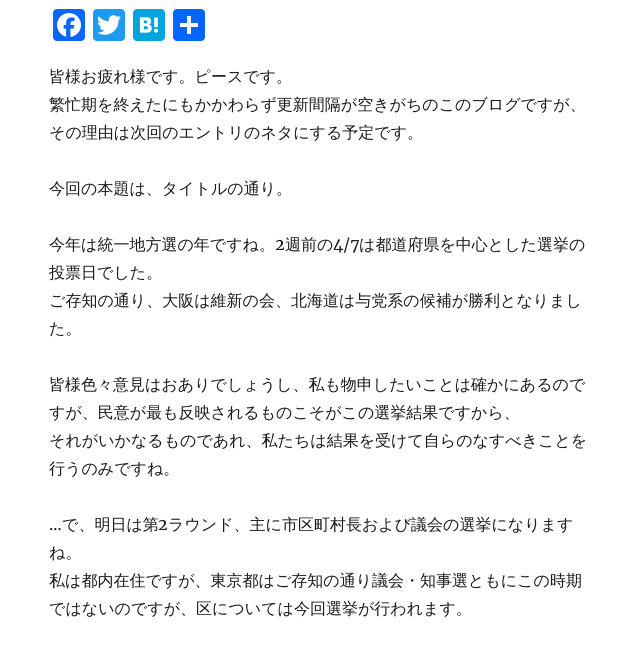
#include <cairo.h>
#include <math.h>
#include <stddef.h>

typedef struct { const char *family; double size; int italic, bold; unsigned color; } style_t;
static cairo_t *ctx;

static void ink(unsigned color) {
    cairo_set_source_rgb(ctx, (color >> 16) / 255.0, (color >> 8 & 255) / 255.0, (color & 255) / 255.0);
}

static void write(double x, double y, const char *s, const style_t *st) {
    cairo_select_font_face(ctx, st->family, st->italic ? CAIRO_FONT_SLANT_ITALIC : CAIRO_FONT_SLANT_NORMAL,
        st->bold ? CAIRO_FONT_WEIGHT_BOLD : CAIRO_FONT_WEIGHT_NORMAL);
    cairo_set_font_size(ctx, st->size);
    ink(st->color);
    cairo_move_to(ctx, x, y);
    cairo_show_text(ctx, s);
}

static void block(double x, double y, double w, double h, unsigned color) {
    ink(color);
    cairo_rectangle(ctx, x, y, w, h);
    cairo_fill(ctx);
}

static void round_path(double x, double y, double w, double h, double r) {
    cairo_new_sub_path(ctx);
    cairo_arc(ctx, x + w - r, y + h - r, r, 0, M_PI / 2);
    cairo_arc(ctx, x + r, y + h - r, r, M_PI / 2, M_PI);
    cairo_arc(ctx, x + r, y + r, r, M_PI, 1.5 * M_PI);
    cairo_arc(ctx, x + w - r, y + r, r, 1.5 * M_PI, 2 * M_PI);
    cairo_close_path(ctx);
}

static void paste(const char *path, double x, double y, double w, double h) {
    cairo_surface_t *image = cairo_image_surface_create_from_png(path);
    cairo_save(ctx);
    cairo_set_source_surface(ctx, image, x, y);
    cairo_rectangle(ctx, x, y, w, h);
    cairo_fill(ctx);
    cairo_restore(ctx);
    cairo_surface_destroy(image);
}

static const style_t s1 = {"WenQuanYi Zen Hei Medium", 16, 0, 0, 0x1a1a1a};
static const style_t s2 = {"Merriweather", 16, 0, 0, 0x1a1a1a};

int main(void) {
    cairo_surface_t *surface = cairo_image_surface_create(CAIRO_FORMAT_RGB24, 638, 664);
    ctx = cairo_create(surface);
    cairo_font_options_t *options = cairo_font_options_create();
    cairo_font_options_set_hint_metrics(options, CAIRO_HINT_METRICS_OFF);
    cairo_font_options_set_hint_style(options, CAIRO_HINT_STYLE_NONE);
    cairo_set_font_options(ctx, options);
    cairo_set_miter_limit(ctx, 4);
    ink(0xffffff);
    cairo_paint(ctx);
    ink(0x0866ff);
    round_path(53, 9, 32, 32, 4);
    cairo_fill(ctx);
    paste("pic1.png", 57, 13, 24, 24);
    ink(0x1d9bf0);
    round_path(93, 9, 32, 32, 4);
    cairo_fill(ctx);
    paste("pic2.png", 97, 15, 24, 20);
    ink(0x00a6db);
    round_path(133, 9, 32, 32, 4);
    cairo_fill(ctx);
    paste("pic3.png", 139, 17, 19, 16);
    ink(0x0166ff);
    round_path(173, 9, 32, 32, 4);
    cairo_fill(ctx);
    block(187, 16, 4, 18, 0xffffff);
    block(180, 23, 18, 4, 0xffffff);
    write(49, 82, "皆様お疲れ様です。ピースです。", &s1);
    write(49, 110, "繁忙期を終えたにもかかわらず更新間隔が空きがちのこのブログですが、", &s1);
    write(49, 138, "その理由は次回のエントリのネタにする予定です。", &s1);
    write(49, 194, "今回の本題は、タイトルの通り。", &s1);
    write(49, 250, "今年は統一地方選の年ですね。", &s1);
    write(275, 250, "2", &s2);
    write(285, 250, "週前の", &s1);
    write(333, 250, "4/7", &s2);
    write(359, 250, "は都道府県を中心とした選挙の", &s1);
    write(49, 278, "投票日でした。", &s1);
    write(49, 306, "ご存知の通り、大阪は維新の会、北海道は与党系の候補が勝利となりまし", &s1);
    write(49, 334, "た。", &s1);
    write(49, 390, "皆様色々意見はおありでしょうし、私も物申したいことは確かにあるので", &s1);
    write(49, 418, "すが、民意が最も反映されるものこそがこの選挙結果ですから、", &s1);
    write(49, 446, "それがいかなるものであれ、私たちは結果を受けて自らのなすべきことを", &s1);
    write(49, 474, "行うのみですね。", &s1);
    write(49, 530, "…", &s2);
    write(62, 530, "で、明日は第", &s1);
    write(158, 530, "2", &s2);
    write(168, 530, "ラウンド、主に市区町村長および議会の選挙になります", &s1);
    write(49, 558, "ね。", &s1);
    write(49, 586, "私は都内在住ですが、東京都はご存知の通り議会・知事選ともにこの時期", &s1);
    write(49, 614, "ではないのですが、区については今回選挙が行われます。", &s1);
    cairo_surface_write_to_png(surface, "screenshot.png");
    cairo_font_options_destroy(options);
    cairo_destroy(ctx);
    cairo_surface_destroy(surface);
    return 0;
}
